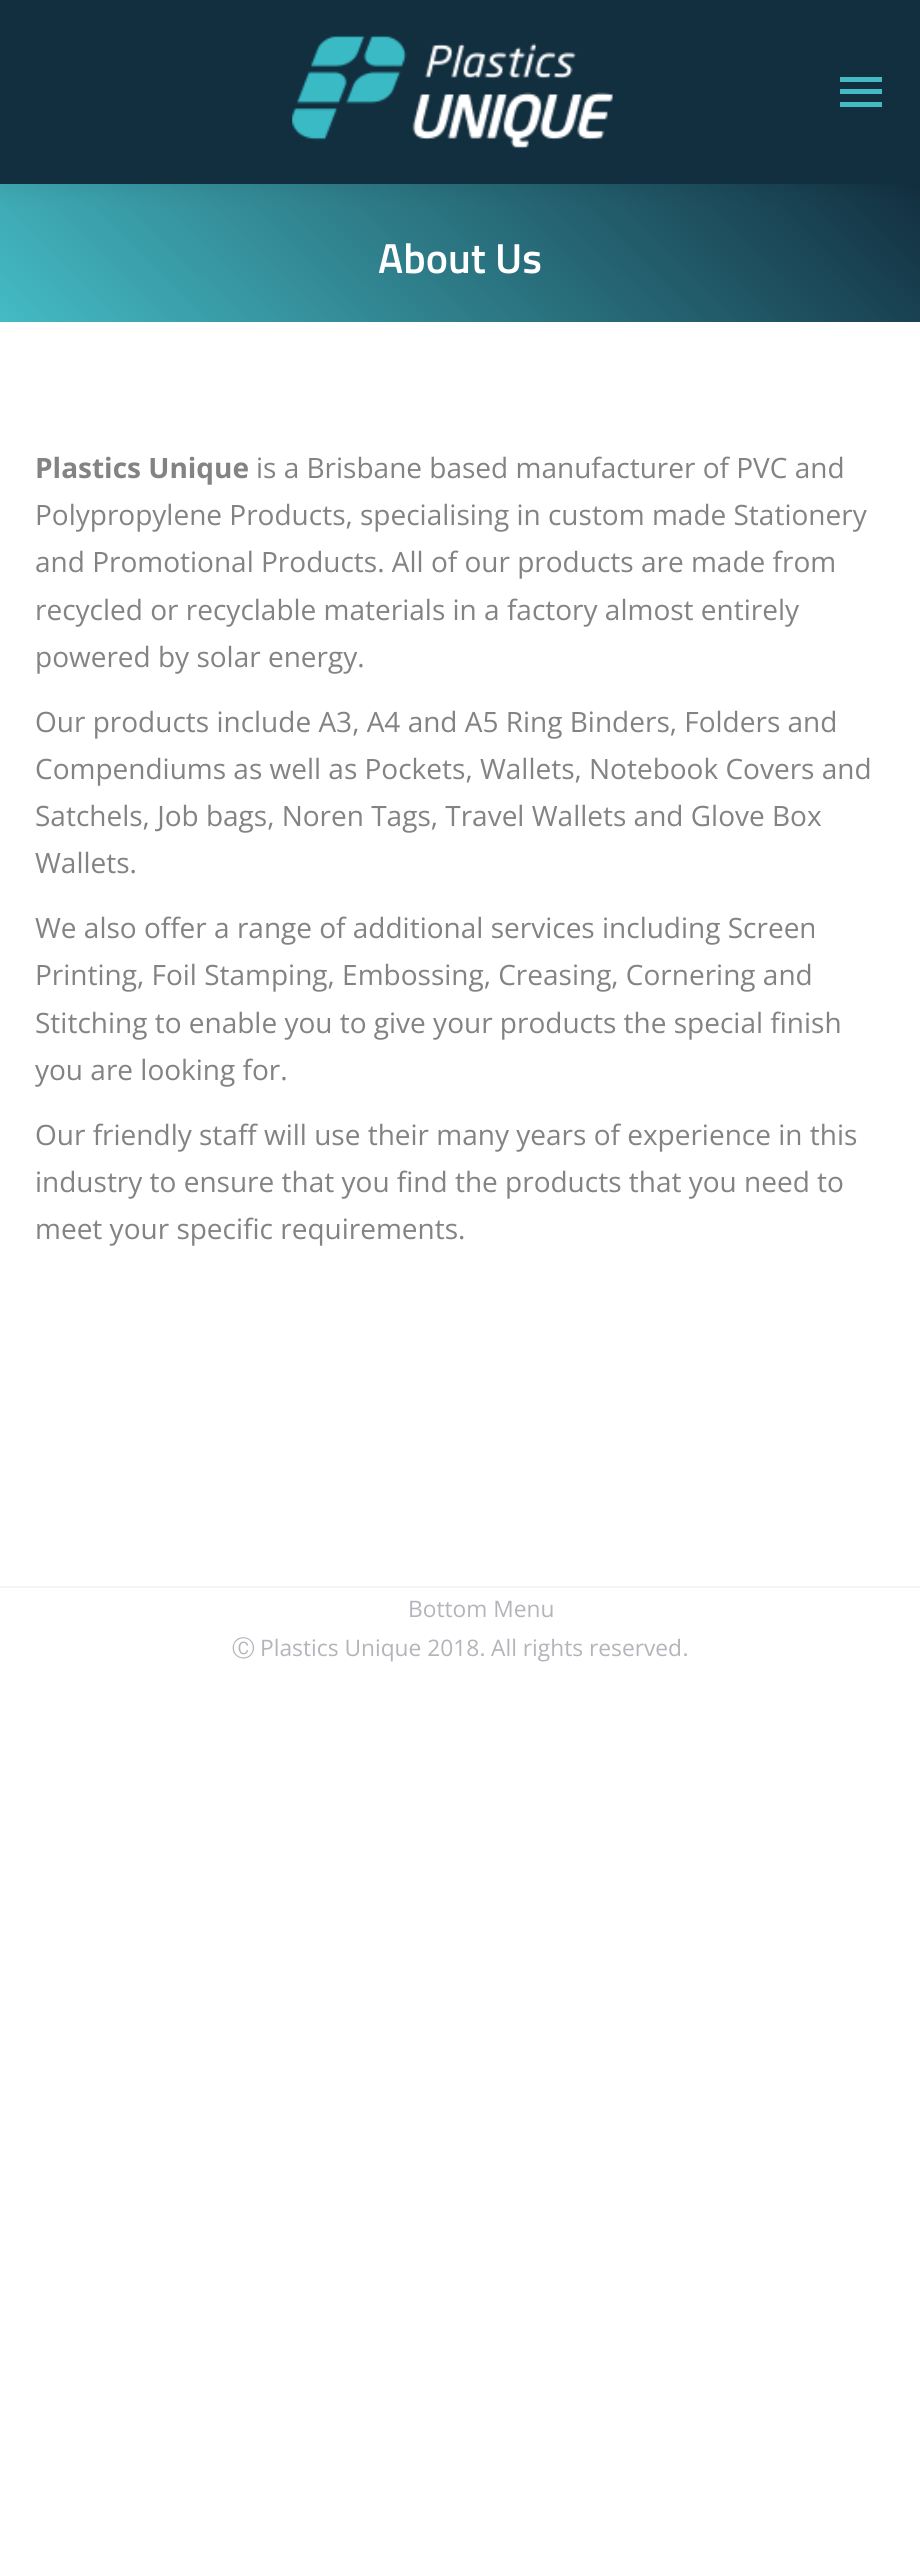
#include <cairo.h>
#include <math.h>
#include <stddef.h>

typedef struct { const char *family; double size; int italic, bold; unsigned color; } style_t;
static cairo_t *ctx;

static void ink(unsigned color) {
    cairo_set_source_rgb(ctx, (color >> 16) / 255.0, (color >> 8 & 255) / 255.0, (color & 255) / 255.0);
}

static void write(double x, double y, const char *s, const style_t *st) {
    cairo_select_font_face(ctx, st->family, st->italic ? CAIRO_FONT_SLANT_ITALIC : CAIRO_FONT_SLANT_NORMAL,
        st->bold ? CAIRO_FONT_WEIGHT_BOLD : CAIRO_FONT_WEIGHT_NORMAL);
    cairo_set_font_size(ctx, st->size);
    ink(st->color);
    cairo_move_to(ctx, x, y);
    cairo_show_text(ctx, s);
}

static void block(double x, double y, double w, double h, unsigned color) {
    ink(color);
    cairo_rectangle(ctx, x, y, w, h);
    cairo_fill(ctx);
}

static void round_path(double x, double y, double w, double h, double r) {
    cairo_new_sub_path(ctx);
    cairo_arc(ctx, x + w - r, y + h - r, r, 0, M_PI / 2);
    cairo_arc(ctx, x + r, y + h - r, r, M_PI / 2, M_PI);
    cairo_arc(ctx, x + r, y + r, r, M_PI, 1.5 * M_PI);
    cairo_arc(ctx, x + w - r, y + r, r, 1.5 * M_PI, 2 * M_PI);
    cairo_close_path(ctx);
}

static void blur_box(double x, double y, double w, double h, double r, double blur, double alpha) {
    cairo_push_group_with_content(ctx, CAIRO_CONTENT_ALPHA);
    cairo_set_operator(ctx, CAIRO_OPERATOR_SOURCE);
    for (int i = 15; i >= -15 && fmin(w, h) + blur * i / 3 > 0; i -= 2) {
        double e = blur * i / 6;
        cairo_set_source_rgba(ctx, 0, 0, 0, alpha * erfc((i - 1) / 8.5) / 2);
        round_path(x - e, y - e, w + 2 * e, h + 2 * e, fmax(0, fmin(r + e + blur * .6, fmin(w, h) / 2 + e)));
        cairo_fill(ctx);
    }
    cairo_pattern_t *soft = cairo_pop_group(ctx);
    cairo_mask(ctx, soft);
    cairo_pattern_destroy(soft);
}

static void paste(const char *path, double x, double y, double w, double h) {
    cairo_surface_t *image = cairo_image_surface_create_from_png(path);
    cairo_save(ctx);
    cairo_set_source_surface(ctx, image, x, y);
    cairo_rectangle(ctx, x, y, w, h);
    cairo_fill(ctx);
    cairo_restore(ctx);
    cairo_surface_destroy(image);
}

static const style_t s1 = {"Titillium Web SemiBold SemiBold", 42, 0, 0, 0xffffff};
static const style_t s2 = {"Open Sans", 28, 0, 1, 0x838383};
static const style_t s3 = {"Open Sans", 28, 0, 0, 0x838383};
static const style_t s4 = {"Open Sans", 22.75, 0, 0, 0xb4b5bb};
static const style_t s5 = {"WenQuanYi Zen Hei Medium", 22.75, 0, 0, 0xb4b5bb};

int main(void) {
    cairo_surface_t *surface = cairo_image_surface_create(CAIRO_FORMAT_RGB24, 920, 2557);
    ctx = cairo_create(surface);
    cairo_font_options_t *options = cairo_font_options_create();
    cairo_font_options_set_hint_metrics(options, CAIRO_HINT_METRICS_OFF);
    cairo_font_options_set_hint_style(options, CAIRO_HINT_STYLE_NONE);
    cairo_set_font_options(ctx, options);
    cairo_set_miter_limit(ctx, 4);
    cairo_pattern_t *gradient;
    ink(0xffffff);
    cairo_paint(ctx);
    gradient = cairo_pattern_create_linear(196, 518, 725, -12);
    cairo_pattern_add_color_stop_rgba(gradient, 0, 0.267, 0.733, 0.769, 1);
    cairo_pattern_add_color_stop_rgba(gradient, 1, 0.071, 0.184, 0.251, 1);
    cairo_set_source(ctx, gradient);
    cairo_pattern_destroy(gradient);
    cairo_rectangle(ctx, 0, 184, 920, 138);
    cairo_fill(ctx);
    ink(0x000000);
    blur_box(-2, -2, 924, 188, 0, 13, 0.07);
    block(0, 0, 920, 184, 0x122f40);
    paste("pic1.png", 292, 35, 321, 114);
    block(840, 77, 42, 5, 0x44bbc4);
    block(840, 89, 42, 5, 0x44bbc4);
    block(840, 102, 42, 5, 0x44bbc4);
    write(378, 273, "About Us", &s1);
    write(35, 478, "Plastics Unique", &s2);
    write(256, 478, "is a Brisbane based manufacturer of PVC and", &s3);
    write(35, 525, "Polypropylene Products, specialising in custom made Stationery", &s3);
    write(35, 572, "and Promotional Products. All of our products are made from", &s3);
    write(35, 620, "recycled or recyclable materials in a factory almost entirely", &s3);
    write(35, 667, "powered by solar energy.", &s3);
    write(35, 732, "Our products include A3, A4 and A5 Ring Binders, Folders and", &s3);
    write(35, 779, "Compendiums as well as Pockets, Wallets, Notebook Covers and", &s3);
    write(35, 826, "Satchels, Job bags, Noren Tags, Travel Wallets and Glove Box", &s3);
    write(35, 873, "Wallets.", &s3);
    write(35, 938, "We also offer a range of additional services including Screen", &s3);
    write(35, 985, "Printing, Foil Stamping, Embossing, Creasing, Cornering and", &s3);
    write(35, 1033, "Stitching to enable you to give your products the special finish", &s3);
    write(35, 1080, "you are looking for.", &s3);
    write(35, 1145, "Our friendly staff will use their many years of experience in this", &s3);
    write(35, 1192, "industry to ensure that you find the products that you need to", &s3);
    write(35, 1239, "meet your specific requirements.", &s3);
    block(0, 1586, 920, 2, 0xf4f4f4);
    write(408, 1617, "Bottom Menu", &s4);
    write(232, 1656, "Ⓒ", &s5);
    write(260, 1656, "Plastics Unique 2018", &s4);
    write(479, 1656, ".", &s5);
    write(491, 1656, "All rights reserved", &s4);
    write(682, 1656, ".", &s5);
    cairo_surface_write_to_png(surface, "screenshot.png");
    cairo_font_options_destroy(options);
    cairo_destroy(ctx);
    cairo_surface_destroy(surface);
    return 0;
}
